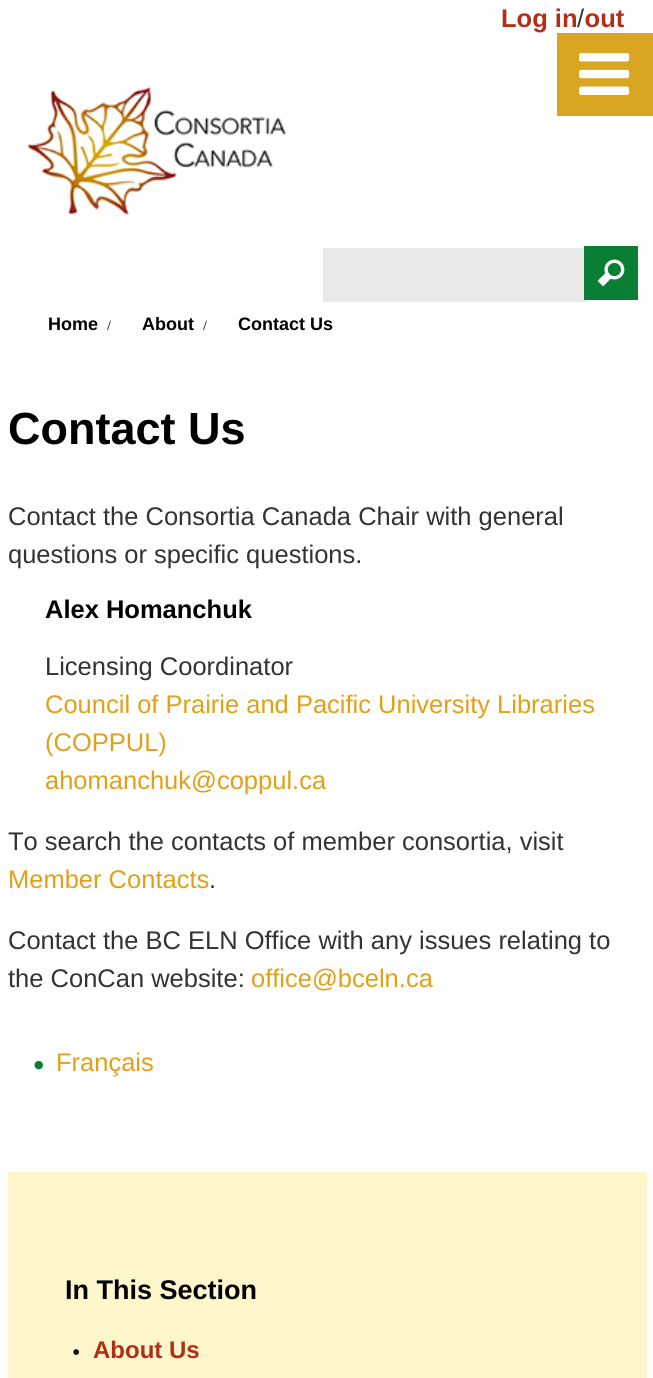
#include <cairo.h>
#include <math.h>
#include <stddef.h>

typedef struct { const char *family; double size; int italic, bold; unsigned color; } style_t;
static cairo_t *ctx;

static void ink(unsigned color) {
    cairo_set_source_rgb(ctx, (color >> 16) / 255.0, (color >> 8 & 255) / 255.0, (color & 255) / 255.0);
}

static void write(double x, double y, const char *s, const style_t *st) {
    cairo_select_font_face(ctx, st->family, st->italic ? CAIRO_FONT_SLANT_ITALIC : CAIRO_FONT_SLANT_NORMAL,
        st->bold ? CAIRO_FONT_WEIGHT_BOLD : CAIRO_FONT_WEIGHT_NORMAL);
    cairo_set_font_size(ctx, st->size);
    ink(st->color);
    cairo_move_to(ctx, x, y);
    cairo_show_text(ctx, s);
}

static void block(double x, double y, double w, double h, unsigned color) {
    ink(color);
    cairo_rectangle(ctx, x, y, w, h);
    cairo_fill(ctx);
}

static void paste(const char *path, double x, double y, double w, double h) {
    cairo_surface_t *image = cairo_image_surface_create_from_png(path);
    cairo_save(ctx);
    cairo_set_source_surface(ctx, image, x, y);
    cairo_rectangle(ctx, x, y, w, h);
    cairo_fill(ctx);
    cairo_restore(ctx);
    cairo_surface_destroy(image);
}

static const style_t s1 = {"Liberation Sans", 25.5, 0, 1, 0xaf3017};
static const style_t s2 = {"Liberation Sans", 25.5, 0, 0, 0x333333};
static const style_t s3 = {"Liberation Sans", 18, 0, 1, 0x000000};
static const style_t s4 = {"Liberation Serif", 14, 0, 1, 0x333333};
static const style_t s5 = {"Liberation Sans", 45, 0, 1, 0x000000};
static const style_t s6 = {"Liberation Sans", 25.5, 0, 1, 0x000000};
static const style_t s7 = {"Liberation Sans", 25.5, 0, 0, 0xe1a017};
static const style_t s8 = {"Liberation Sans", 27, 0, 1, 0x000000};
static const style_t s9 = {"Liberation Serif", 24, 0, 0, 0x000000};
static const style_t s10 = {"Liberation Sans", 24, 0, 1, 0xaf3017};

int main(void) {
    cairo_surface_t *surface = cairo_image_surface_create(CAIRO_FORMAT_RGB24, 653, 1378);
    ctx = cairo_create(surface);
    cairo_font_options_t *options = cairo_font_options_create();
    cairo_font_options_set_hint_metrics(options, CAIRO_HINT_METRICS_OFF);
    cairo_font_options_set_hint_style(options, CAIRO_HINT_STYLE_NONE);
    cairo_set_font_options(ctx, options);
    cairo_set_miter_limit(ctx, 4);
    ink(0xffffff);
    cairo_paint(ctx);
    write(501, 27, "Log in out", &s1);
    write(577, 27, "/", &s2);
    block(557, 33, 96, 83, 0xdaa520);
    paste("pic1.png", 579, 53, 51, 42);
    block(323, 248, 264, 54, 0xe9e9e9);
    block(584, 246, 54, 54, 0x0a7e35);
    paste("pic2.png", 597, 259, 28, 28);
    paste("pic3.png", 27, 86, 260, 130);
    write(48, 330, "Home", &s3);
    write(107, 330, "/", &s4);
    write(142, 330, "About", &s3);
    write(203, 330, "/", &s4);
    write(238, 330, "Contact Us", &s3);
    write(8, 444, "Contact Us", &s5);
    write(8, 525, "Contact the Consortia Canada Chair with general", &s2);
    write(8, 563, "questions or specific questions.", &s2);
    write(45, 618, "Alex Homanchuk", &s6);
    write(45, 675, "Licensing Coordinator", &s2);
    write(45, 713, "Council of Prairie and Pacific University Libraries", &s7);
    write(45, 751, "(COPPUL)", &s7);
    write(45, 789, "ahomanchuk@coppul.ca", &s7);
    write(8, 850, "To search the contacts of member consortia, visit", &s2);
    write(8, 888, "Member Contacts", &s7);
    write(209, 888, ".", &s2);
    write(8, 949, "Contact the BC ELN Office with any issues relating to", &s2);
    write(8, 987, "the ConCan website:", &s2);
    write(251, 987, "office@bceln.ca", &s7);
    paste("pic4.png", 34, 1060, 9, 10);
    write(56, 1071, "Français", &s7);
    block(8, 1172, 639, 206, 0xfff6cc);
    write(65, 1299, "In This Section", &s8);
    write(72, 1360, "•", &s9);
    write(93, 1358, "About Us", &s10);
    cairo_surface_write_to_png(surface, "screenshot.png");
    cairo_font_options_destroy(options);
    cairo_destroy(ctx);
    cairo_surface_destroy(surface);
    return 0;
}
